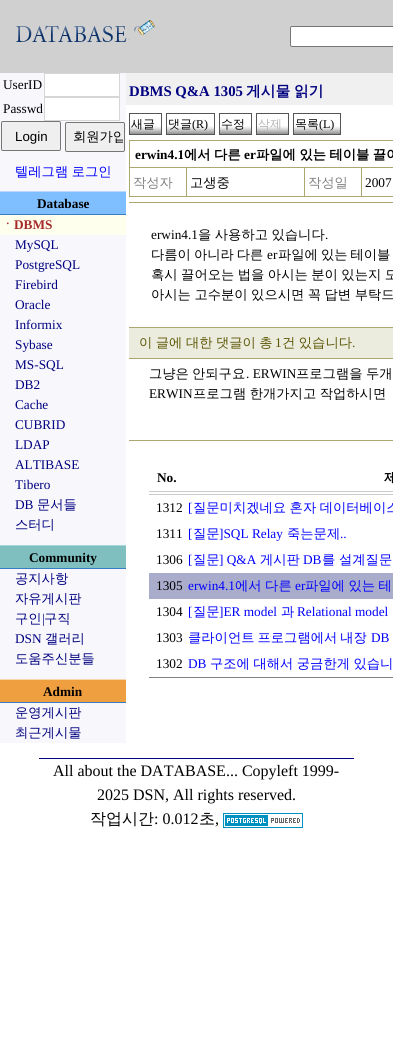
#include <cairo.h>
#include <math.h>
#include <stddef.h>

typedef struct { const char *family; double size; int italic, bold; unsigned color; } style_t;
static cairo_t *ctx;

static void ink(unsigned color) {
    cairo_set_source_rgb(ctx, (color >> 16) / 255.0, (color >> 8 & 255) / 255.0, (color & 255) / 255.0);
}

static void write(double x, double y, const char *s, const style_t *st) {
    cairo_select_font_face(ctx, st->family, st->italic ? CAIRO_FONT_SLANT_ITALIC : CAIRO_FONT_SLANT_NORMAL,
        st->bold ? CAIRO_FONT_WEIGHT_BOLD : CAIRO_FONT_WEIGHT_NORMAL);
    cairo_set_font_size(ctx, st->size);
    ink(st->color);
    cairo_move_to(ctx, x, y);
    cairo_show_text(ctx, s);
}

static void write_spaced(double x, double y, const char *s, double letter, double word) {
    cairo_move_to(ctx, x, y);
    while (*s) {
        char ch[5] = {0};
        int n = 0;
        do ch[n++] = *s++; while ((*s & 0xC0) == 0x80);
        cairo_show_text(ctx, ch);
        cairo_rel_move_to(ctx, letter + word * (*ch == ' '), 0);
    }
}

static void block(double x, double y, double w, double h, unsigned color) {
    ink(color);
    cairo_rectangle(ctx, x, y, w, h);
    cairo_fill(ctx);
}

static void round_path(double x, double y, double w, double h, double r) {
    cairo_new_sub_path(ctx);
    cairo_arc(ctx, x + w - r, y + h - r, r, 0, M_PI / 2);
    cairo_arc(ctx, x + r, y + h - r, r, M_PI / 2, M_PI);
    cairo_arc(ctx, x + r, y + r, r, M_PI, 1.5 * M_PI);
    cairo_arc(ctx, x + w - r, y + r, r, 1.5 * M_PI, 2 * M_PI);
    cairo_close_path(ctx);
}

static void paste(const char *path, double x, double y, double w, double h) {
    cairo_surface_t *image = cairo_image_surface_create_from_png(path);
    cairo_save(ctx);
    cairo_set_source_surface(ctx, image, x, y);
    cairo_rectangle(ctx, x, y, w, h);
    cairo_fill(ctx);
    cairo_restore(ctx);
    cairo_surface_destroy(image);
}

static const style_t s1 = {"Liberation Serif", 13.3, 0, 0, 0x000000};
static const style_t s2 = {"Liberation Sans", 13.3, 0, 0, 0x000000};
static const style_t s3 = {"WenQuanYi Zen Hei Medium", 13.3, 0, 0, 0x000000};
static const style_t s4 = {"Liberation Serif", 13.3, 0, 1, 0x000000};
static const style_t s5 = {"WenQuanYi Zen Hei", 13.3, 0, 1, 0xa52a2a};
static const style_t s6 = {"Liberation Serif", 13.3, 0, 1, 0xa52a2a};
static const style_t s7 = {"Liberation Serif", 13.3, 0, 0, 0x000080};
static const style_t s8 = {"WenQuanYi Zen Hei Medium", 13.3, 0, 0, 0x000080};
static const style_t s9 = {"Liberation Serif", 14.75, 0, 1, 0x000080};
static const style_t s10 = {"WenQuanYi Zen Hei", 14.75, 0, 1, 0x000080};
static const style_t s11 = {"WenQuanYi Zen Hei Medium", 12, 0, 0, 0x000000};
static const style_t s12 = {"Liberation Serif", 12, 0, 0, 0x000000};
static const style_t s13 = {"WenQuanYi Zen Hei Medium", 12, 0, 0, 0xb4b4b4};
static const style_t s14 = {"WenQuanYi Zen Hei Medium", 13.3, 0, 0, 0x808080};
static const style_t s15 = {"Liberation Serif", 13.3, 0, 0, 0x5c5603};
static const style_t s16 = {"WenQuanYi Zen Hei", 13.3, 0, 1, 0x000000};
static const style_t s17 = {"Liberation Serif", 13.3, 0, 0, 0x0000ff};
static const style_t s18 = {"WenQuanYi Zen Hei Medium", 13.3, 0, 0, 0x0000ff};
static const style_t s19 = {"Liberation Serif", 16, 0, 0, 0x000000};
static const style_t s20 = {"WenQuanYi Zen Hei Medium", 16, 0, 0, 0x000000};

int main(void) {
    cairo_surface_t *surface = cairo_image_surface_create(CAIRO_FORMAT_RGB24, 393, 1048);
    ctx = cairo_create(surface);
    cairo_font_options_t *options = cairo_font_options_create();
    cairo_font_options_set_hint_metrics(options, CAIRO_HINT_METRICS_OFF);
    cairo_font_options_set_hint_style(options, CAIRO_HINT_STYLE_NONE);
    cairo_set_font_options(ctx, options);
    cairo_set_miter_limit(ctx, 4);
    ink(0xffffff);
    cairo_paint(ctx);
    block(0, 0, 393, 73, 0xd0d0d0);
    paste("pic1.png", 16, 20, 139, 23);
    ink(0xffffff);
    round_path(290.5, 26.5, 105, 20, 1.5);
    cairo_fill_preserve(ctx);
    ink(0x767676);
    cairo_set_line_width(ctx, 1);
    cairo_stroke(ctx);
    block(0, 73, 126, 670, 0xf7f7fc);
    write(3, 89, "UserID", &s1);
    ink(0xffffff);
    cairo_rectangle(ctx, 44.5, 73.5, 75, 23);
    cairo_fill_preserve(ctx);
    ink(0xd6d6d6);
    cairo_stroke(ctx);
    write(3, 113, "Passwd", &s1);
    ink(0xffffff);
    cairo_rectangle(ctx, 44.5, 97.5, 75, 23);
    cairo_fill_preserve(ctx);
    ink(0xd6d6d6);
    cairo_stroke(ctx);
    ink(0xefefef);
    round_path(1.5, 121.5, 59, 29, 1.5);
    cairo_fill_preserve(ctx);
    ink(0x767676);
    cairo_stroke(ctx);
    write(15, 141, "Login", &s2);
    ink(0xefefef);
    round_path(65.5, 122.5, 59, 29, 1.5);
    cairo_fill_preserve(ctx);
    ink(0x767676);
    cairo_stroke(ctx);
    cairo_save(ctx);
    cairo_rectangle(ctx, 67, 124, 56, 26);
    cairo_clip(ctx);
    write(73, 141, "회원가입", &s3);
    cairo_restore(ctx);
    cairo_select_font_face(ctx, "WenQuanYi Zen Hei Medium", CAIRO_FONT_SLANT_NORMAL, CAIRO_FONT_WEIGHT_NORMAL);
    ink(0x0000ff);
    write_spaced(15, 176, "텔레그램 로그인", 0, -0.5);
    block(0, 192, 126, 22, 0x80bfff);
    block(0, 191, 126, 1, 0xbbd7fc);
    block(0, 214, 126, 1, 0x377dc5);
    write(37, 208, "Database", &s4);
    block(0, 215, 126, 20, 0xffffee);
    write(1, 229, "ㆍ", &s5);
    write(14, 229, "DBMS", &s6);
    write(15, 249, "MySQL", &s7);
    write(15, 269, "PostgreSQL", &s7);
    write(15, 289, "Firebird", &s7);
    write(15, 309, "Oracle", &s7);
    write(15, 329, "Informix", &s7);
    write(15, 349, "Sybase", &s7);
    write(15, 369, "MS-SQL", &s7);
    write(15, 389, "DB2", &s7);
    write(15, 409, "Cache", &s7);
    write(15, 429, "CUBRID", &s7);
    write(15, 449, "LDAP", &s7);
    write(15, 469, "ALTIBASE", &s7);
    write(15, 489, "Tibero", &s7);
    write(15, 509, "DB", &s7);
    write(37, 509, "문서들", &s8);
    write(15, 529, "스터디", &s8);
    block(0, 546, 126, 22, 0x7fbfc0);
    block(0, 545, 126, 1, 0xa5d8dd);
    block(0, 568, 126, 1, 0x377dc5);
    write(29, 562, "Community", &s4);
    write(15, 583, "공지사항", &s8);
    write(15, 603, "자유게시판", &s8);
    write(15, 623, "구인", &s8);
    write(42, 623, "|", &s7);
    write(44, 623, "구직", &s8);
    write(15, 643, "DSN", &s7);
    write(45, 643, "갤러리", &s8);
    write(15, 663, "도움주신분들", &s8);
    block(0, 680, 126, 22, 0xef9f3f);
    block(0, 679, 126, 1, 0xf8d6ae);
    block(0, 702, 126, 1, 0x377dc5);
    write(43, 696, "Admin", &s4);
    write(15, 717, "운영게시판", &s8);
    write(15, 737, "최근게시물", &s8);
    block(126, 73, 267, 32, 0xf0f0f0);
    write(129, 96, "DBMS Q&A 1305", &s9);
    write(246, 96, "게시물", &s10);
    write(294, 96, "읽기", &s10);
    paste("pic2.png", 130, 114, 31, 20);
    cairo_rectangle(ctx, 129.5, 113.5, 32, 21);
    ink(0x555555);
    cairo_stroke(ctx);
    write(131, 128, "새글", &s11);
    paste("pic3.png", 167, 114, 47, 20);
    cairo_rectangle(ctx, 166.5, 113.5, 48, 21);
    ink(0x555555);
    cairo_stroke(ctx);
    write(168, 128, "댓글", &s11);
    write(192, 128, "(R)", &s12);
    paste("pic2.png", 220, 114, 31, 20);
    cairo_rectangle(ctx, 219.5, 113.5, 32, 21);
    ink(0x555555);
    cairo_stroke(ctx);
    write(221, 128, "수정", &s11);
    paste("pic2.png", 257, 114, 31, 20);
    cairo_rectangle(ctx, 256.5, 113.5, 32, 21);
    ink(0x555555);
    cairo_stroke(ctx);
    write(258, 128, "삭제", &s13);
    paste("pic4.png", 294, 114, 46, 20);
    cairo_rectangle(ctx, 293.5, 113.5, 47, 21);
    ink(0x555555);
    cairo_stroke(ctx);
    write(295, 128, "목록", &s11);
    write(319, 128, "(L)", &s12);
    block(129, 140, 264, 1, 0xaca673);
    block(129, 140, 1, 57, 0xaca673);
    block(130, 167, 263, 1, 0xaca673);
    write(135, 159, "erwin4.1", &s4);
    cairo_select_font_face(ctx, "WenQuanYi Zen Hei", CAIRO_FONT_SLANT_NORMAL, CAIRO_FONT_WEIGHT_BOLD);
    write_spaced(184, 159, "에서 다른", 0, -0.5);
    write(244, 159, "er", &s4);
    cairo_select_font_face(ctx, "WenQuanYi Zen Hei", CAIRO_FONT_SLANT_NORMAL, CAIRO_FONT_WEIGHT_BOLD);
    write_spaced(256, 159, "파일에 있는 테이블 끌어", 0, -0.5);
    block(186, 168, 1, 29, 0xaca673);
    block(130, 196, 57, 1, 0xaca673);
    write(133, 187, "작성자", &s14);
    block(304, 168, 1, 29, 0xaca673);
    block(187, 196, 118, 1, 0xaca673);
    write(190, 187, "고생중", &s3);
    block(361, 168, 1, 29, 0xaca673);
    block(305, 196, 88, 1, 0xaca673);
    write(308, 187, "작성일", &s14);
    write(365, 187, "2007", &s1);
    block(129, 202, 264, 1, 0xaca673);
    block(129, 327, 264, 1, 0xaca673);
    write(151, 239, "erwin4.1", &s1);
    cairo_select_font_face(ctx, "WenQuanYi Zen Hei Medium", CAIRO_FONT_SLANT_NORMAL, CAIRO_FONT_WEIGHT_NORMAL);
    write_spaced(198, 239, "을 사용하고 있습니다", 0, -0.5);
    write(325, 239, ".", &s1);
    cairo_select_font_face(ctx, "WenQuanYi Zen Hei Medium", CAIRO_FONT_SLANT_NORMAL, CAIRO_FONT_WEIGHT_NORMAL);
    write_spaced(151, 259, "다름이 아니라 다른", 0, -1);
    write(267, 259, "er", &s1);
    cairo_select_font_face(ctx, "WenQuanYi Zen Hei Medium", CAIRO_FONT_SLANT_NORMAL, CAIRO_FONT_WEIGHT_NORMAL);
    write_spaced(278, 259, "파일에 있는 테이블", 0, -1);
    write_spaced(151, 279, "혹시 끌어오는 법을 아시는 분이 있는지 모", 0, -0.5);
    write_spaced(151, 299, "아시는 고수분이 있으시면 꼭 답변 부탁드", 0, -0.5);
    block(129, 328, 264, 30, 0xebebde);
    block(129, 358, 264, 1, 0xaca673);
    ink(0x5c5603);
    write_spaced(139, 347, "이 글에 대한 댓글이 총", 0, -0.5);
    write(275, 347, "1", &s15);
    cairo_select_font_face(ctx, "WenQuanYi Zen Hei Medium", CAIRO_FONT_SLANT_NORMAL, CAIRO_FONT_WEIGHT_NORMAL);
    write_spaced(282, 347, "건 있습니다", 0, -0.5);
    write(352, 347, ".", &s15);
    write(149, 378, "그냥은", &s3);
    write(192, 378, "안되구요", &s3);
    write(246, 378, ". ERWIN", &s1);
    write(296, 378, "프로그램을", &s3);
    write(366, 378, "두개", &s3);
    write(149, 398, "ERWIN", &s1);
    cairo_select_font_face(ctx, "WenQuanYi Zen Hei Medium", CAIRO_FONT_SLANT_NORMAL, CAIRO_FONT_WEIGHT_NORMAL);
    write_spaced(193, 398, "프로그램 한개가지고 작업하시면", 0, -0.5);
    block(129, 440, 264, 1, 0xaca673);
    block(149, 677, 244, 1, 0x808080);
    block(149, 491, 244, 1, 0xcccccc);
    block(149, 494, 244, 1, 0xcccccc);
    write(157, 482, "No.", &s4);
    write(384, 482, "제", &s16);
    write(156, 512, "1312", &s1);
    write(188, 512, "[", &s17);
    cairo_select_font_face(ctx, "WenQuanYi Zen Hei Medium", CAIRO_FONT_SLANT_NORMAL, CAIRO_FONT_WEIGHT_NORMAL);
    write_spaced(193, 512, "질문미치겠네요 혼자 데이터베이스", 0, -0.5);
    write(156, 538, "1311", &s1);
    write(188, 538, "[", &s17);
    write(193, 538, "질문", &s18);
    write(219, 538, "]SQL Relay", &s17);
    write(287, 538, "죽는문제", &s18);
    write(340, 538, "..", &s17);
    write(156, 564, "1306", &s1);
    write(188, 564, "[", &s17);
    write(193, 564, "질문", &s18);
    write(219, 564, "] Q&A", &s17);
    write(260, 564, "게시판", &s18);
    write(303, 564, "DB", &s17);
    write(322, 564, "를", &s18);
    write(339, 564, "설계질문", &s18);
    block(149, 573, 244, 26, 0xaaaccb);
    write(156, 590, "1305", &s1);
    write(188, 590, "erwin4.1", &s17);
    cairo_select_font_face(ctx, "WenQuanYi Zen Hei Medium", CAIRO_FONT_SLANT_NORMAL, CAIRO_FONT_WEIGHT_NORMAL);
    write_spaced(235, 590, "에서 다른", 0, -0.5);
    write(295, 590, "er", &s17);
    cairo_select_font_face(ctx, "WenQuanYi Zen Hei Medium", CAIRO_FONT_SLANT_NORMAL, CAIRO_FONT_WEIGHT_NORMAL);
    write_spaced(305, 590, "파일에 있는 테", 0, -0.5);
    write(156, 616, "1304", &s1);
    write(188, 616, "[", &s17);
    write(193, 616, "질문", &s18);
    write(219, 616, "]ER model", &s17);
    write(281, 616, "과", &s18);
    write(297, 616, "Relational model", &s17);
    write(156, 642, "1303", &s1);
    cairo_select_font_face(ctx, "WenQuanYi Zen Hei Medium", CAIRO_FONT_SLANT_NORMAL, CAIRO_FONT_WEIGHT_NORMAL);
    ink(0x0000ff);
    write_spaced(188, 642, "클라이언트 프로그램에서 내장", 0, -1);
    write(371, 642, "DB", &s17);
    write(156, 668, "1302", &s1);
    write(188, 668, "DB", &s17);
    cairo_select_font_face(ctx, "WenQuanYi Zen Hei Medium", CAIRO_FONT_SLANT_NORMAL, CAIRO_FONT_WEIGHT_NORMAL);
    write_spaced(210, 668, "구조에 대해서 궁금한게 있습니", 0, -0.5);
    block(39, 758, 315, 1, 0x000080);
    write(53, 776, "All about the DATABASE... Copyleft 1999-", &s19);
    write(97, 800, "2025 DSN, All rights reserved.", &s19);
    write(90, 824, "작업시간", &s20);
    write(154, 824, ": 0.012", &s19);
    write(199, 824, "초", &s20);
    write(215, 824, ",", &s19);
    paste("pic5.png", 223, 813, 80, 15);
    cairo_surface_write_to_png(surface, "screenshot.png");
    cairo_font_options_destroy(options);
    cairo_destroy(ctx);
    cairo_surface_destroy(surface);
    return 0;
}
